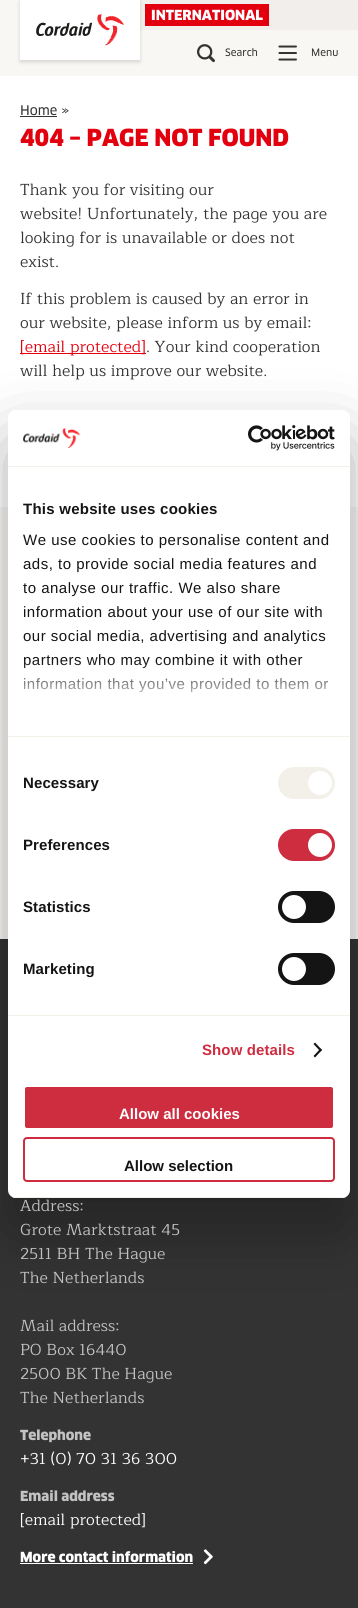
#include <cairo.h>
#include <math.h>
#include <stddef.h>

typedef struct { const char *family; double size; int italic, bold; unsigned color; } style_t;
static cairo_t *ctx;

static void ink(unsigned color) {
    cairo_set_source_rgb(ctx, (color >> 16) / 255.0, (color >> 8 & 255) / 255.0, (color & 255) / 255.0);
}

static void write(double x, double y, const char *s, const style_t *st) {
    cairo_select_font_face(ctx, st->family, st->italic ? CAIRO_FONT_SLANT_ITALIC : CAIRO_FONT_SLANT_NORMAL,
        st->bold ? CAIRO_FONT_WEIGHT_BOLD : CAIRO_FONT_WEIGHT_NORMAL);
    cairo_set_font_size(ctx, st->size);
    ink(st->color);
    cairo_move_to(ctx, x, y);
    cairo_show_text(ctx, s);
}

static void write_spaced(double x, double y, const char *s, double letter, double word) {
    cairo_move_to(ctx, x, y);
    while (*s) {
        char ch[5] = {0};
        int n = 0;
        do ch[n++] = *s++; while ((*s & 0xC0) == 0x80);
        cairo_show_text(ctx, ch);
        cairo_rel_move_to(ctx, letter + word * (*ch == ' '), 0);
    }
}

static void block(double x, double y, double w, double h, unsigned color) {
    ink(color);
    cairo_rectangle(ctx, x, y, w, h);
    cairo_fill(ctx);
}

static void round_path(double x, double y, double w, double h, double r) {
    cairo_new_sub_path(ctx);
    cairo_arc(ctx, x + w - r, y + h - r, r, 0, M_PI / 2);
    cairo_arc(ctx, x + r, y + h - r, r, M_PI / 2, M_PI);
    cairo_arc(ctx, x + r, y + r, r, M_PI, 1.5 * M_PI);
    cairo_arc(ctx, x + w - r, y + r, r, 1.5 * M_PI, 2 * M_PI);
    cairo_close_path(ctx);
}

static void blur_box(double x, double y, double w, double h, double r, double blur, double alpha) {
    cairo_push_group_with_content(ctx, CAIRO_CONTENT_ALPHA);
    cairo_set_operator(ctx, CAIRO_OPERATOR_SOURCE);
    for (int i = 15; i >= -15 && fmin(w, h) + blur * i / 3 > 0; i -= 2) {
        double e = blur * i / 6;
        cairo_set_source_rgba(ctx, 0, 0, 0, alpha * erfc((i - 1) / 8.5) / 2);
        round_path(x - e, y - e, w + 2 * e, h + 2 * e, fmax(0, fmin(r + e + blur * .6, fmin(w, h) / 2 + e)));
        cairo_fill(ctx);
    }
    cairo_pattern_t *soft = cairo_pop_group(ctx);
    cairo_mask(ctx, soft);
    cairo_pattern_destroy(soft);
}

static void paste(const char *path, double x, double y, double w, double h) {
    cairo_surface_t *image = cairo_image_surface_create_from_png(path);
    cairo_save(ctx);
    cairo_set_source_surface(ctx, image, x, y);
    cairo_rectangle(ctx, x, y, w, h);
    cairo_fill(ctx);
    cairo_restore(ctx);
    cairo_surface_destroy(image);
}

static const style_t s1 = {"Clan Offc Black", 16, 0, 0, 0xffffff};
static const style_t s2 = {"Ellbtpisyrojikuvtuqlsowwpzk", 10, 0, 0, 0x333333};
static const style_t s3 = {"Ellbtpisyrojikuvtuqlsowwpzk", 13, 0, 0, 0x333333};
static const style_t s4 = {"Clan Offc Black", 27, 0, 0, 0xe2000f};
static const style_t s5 = {"Maitree", 16, 0, 0, 0x333333};
static const style_t s6 = {"Maitree", 16, 0, 0, 0xe2000f};
static const style_t s7 = {"Liberation Sans", 15, 0, 1, 0xffffff};
static const style_t s8 = {"Liberation Sans", 15, 0, 1, 0x141414};
static const style_t s9 = {"Maitree", 16, 0, 0, 0xc2c2c2};
static const style_t s10 = {"Clan Offc Black", 16, 0, 0, 0xc2c2c2};
static const style_t s11 = {"Maitree", 16, 0, 0, 0xffffff};

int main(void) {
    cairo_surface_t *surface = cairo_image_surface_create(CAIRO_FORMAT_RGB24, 358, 1608);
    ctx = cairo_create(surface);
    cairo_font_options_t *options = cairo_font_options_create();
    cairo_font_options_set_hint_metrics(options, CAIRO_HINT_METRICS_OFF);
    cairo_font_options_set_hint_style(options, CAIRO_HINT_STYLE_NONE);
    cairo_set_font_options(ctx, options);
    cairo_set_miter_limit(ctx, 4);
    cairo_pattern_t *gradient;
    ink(0xffffff);
    cairo_paint(ctx);
    block(0, 0, 358, 76, 0xf8f7f4);
    block(140, 0, 218, 30, 0xf1eeeb);
    block(145, 4, 124, 22, 0xe2000f);
    ink(0x000000);
    blur_box(20, 2, 120, 60, 0, 2, 0.15);
    block(20, 0, 120, 60, 0xffffff);
    paste("pic1.png", 36, 14, 88, 32);
    write(151, 20, "INTERNATIONAL", &s1);
    paste("pic2.png", 197, 44, 18, 19);
    write(225, 56, "Search", &s2);
    paste("pic3.png", 278, 45, 19, 16);
    write(311, 56, "Menu", &s2);
    write(20, 115, "Home »", &s3);
    block(20, 116, 37, 1, 0x333333);
    write(20, 146, "404 – PAGE NOT FOUND", &s4);
    write(20, 195, "Thank you for visiting our", &s5);
    write(20, 219, "website! Unfortunately, the page you are", &s5);
    write(20, 243, "looking for is unavailable or does not", &s5);
    write(20, 267, "exist.", &s5);
    write(20, 304, "If this problem is caused by an error in", &s5);
    write(20, 328, "our website, please inform us by email:", &s5);
    block(20, 353, 126, 1, 0xe2000f);
    write(20, 352, "[email protected]", &s6);
    write(146, 352, ". Your kind cooperation", &s5);
    write(20, 376, "will help us improve our website.", &s5);
    block(0, 507, 358, 432, 0xf8f7f4);
    block(0, 939, 358, 669, 0x333333);
    ink(0x000000);
    blur_box(8, 442, 342, 788, 8, 34, 0.3);
    ink(0xffffff);
    round_path(8, 410, 342, 788, 8);
    cairo_fill(ctx);
    block(8, 466, 342, 1, 0xf2f0e8);
    paste("pic4.png", 23, 428, 58, 20);
    paste("pic5.png", 248, 425, 87, 26);
    block(8, 736, 342, 1, 0xf2f0e8);
    cairo_select_font_face(ctx, "Liberation Sans", CAIRO_FONT_SLANT_NORMAL, CAIRO_FONT_WEIGHT_BOLD);
    cairo_set_font_size(ctx, 15);
    ink(0x141414);
    write_spaced(23, 514, "This website uses cookies", 0.25, 0);
    cairo_select_font_face(ctx, "Liberation Sans", CAIRO_FONT_SLANT_NORMAL, CAIRO_FONT_WEIGHT_NORMAL);
    write_spaced(23, 545, "We use cookies to personalise content and", 0.5, 0);
    write_spaced(23, 569, "ads, to provide social media features and", 0.5, 0);
    write_spaced(23, 593, "to analyse our traffic. We also share", 0.5, 0);
    write_spaced(23, 617, "information about your use of our site with", 0.5, 0);
    write_spaced(23, 641, "our social media, advertising and analytics", 0.5, 0);
    write_spaced(23, 665, "partners who may combine it with other", 0.5, 0);
    write_spaced(23, 689, "information that you’ve provided to them or", 0.5, 0);
    gradient = cairo_pattern_create_linear(173, 736, 173, 661);
    cairo_pattern_add_color_stop_rgba(gradient, 0, 1, 1, 1, 1);
    cairo_pattern_add_color_stop_rgba(gradient, 0.5, 1, 1, 1, 0.8);
    cairo_pattern_add_color_stop_rgba(gradient, 1, 1, 1, 1, 0);
    cairo_set_source(ctx, gradient);
    cairo_pattern_destroy(gradient);
    cairo_rectangle(ctx, 24, 662, 305, 31);
    cairo_fill(ctx);
    block(8, 1015, 342, 1, 0xf2f0e8);
    cairo_select_font_face(ctx, "Liberation Sans", CAIRO_FONT_SLANT_NORMAL, CAIRO_FONT_WEIGHT_BOLD);
    ink(0x141414);
    write_spaced(23, 788, "Necessary", 0.1, 0);
    ink(0xf2f0e8);
    round_path(278, 767, 57, 32, 16);
    cairo_fill(ctx);
    ink(0xffffff);
    cairo_arc(ctx, 320, 783, 12, 0, 2 * M_PI);
    cairo_fill(ctx);
    ink(0x141414);
    write_spaced(23, 850, "Preferences", 0.1, 0);
    ink(0xce2c3f);
    round_path(278, 829, 57, 32, 16);
    cairo_fill(ctx);
    ink(0xffffff);
    cairo_arc(ctx, 320, 845, 12, 0, 2 * M_PI);
    cairo_fill(ctx);
    ink(0x141414);
    write_spaced(23, 912, "Statistics", 0.1, 0);
    round_path(278, 891, 57, 32, 16);
    cairo_fill(ctx);
    ink(0xffffff);
    cairo_arc(ctx, 294, 907, 12, 0, 2 * M_PI);
    cairo_fill(ctx);
    ink(0x141414);
    write_spaced(23, 974, "Marketing", 0.1, 0);
    round_path(278, 953, 57, 32, 16);
    cairo_fill(ctx);
    ink(0xffffff);
    cairo_arc(ctx, 294, 969, 12, 0, 2 * M_PI);
    cairo_fill(ctx);
    ink(0xce2c3f);
    write_spaced(202, 1055, "Show details", 0.1, 0);
    ink(0x141414);
    cairo_new_path(ctx);
    cairo_move_to(ctx, 315, 1042.5);
    cairo_line_to(ctx, 322, 1050);
    cairo_line_to(ctx, 320.5, 1051.5);
    cairo_line_to(ctx, 313.5, 1044);
    cairo_close_path(ctx);
    cairo_fill(ctx);
    cairo_new_path(ctx);
    cairo_move_to(ctx, 320.5, 1048.5);
    cairo_line_to(ctx, 322, 1050);
    cairo_line_to(ctx, 315, 1057.5);
    cairo_line_to(ctx, 313.5, 1056);
    cairo_close_path(ctx);
    cairo_fill(ctx);
    cairo_save(ctx);
    round_path(8, 410, 342, 788, 8);
    cairo_clip(ctx);
    block(8, 1197, 342, 1, 0xf2f0e8);
    cairo_restore(ctx);
    ink(0xce2c3f);
    round_path(24, 1086, 310, 43, 3);
    cairo_fill_preserve(ctx);
    ink(0xffffff);
    cairo_stroke(ctx);
    write(119, 1119, "Allow all cookies", &s7);
    round_path(24, 1138, 310, 43, 3);
    ink(0xce2c3f);
    cairo_stroke(ctx);
    write(124, 1171, "Allow selection", &s8);
    write(20, 1211, "Address:", &s9);
    write(20, 1235, "Grote Marktstraat 45", &s9);
    write(20, 1259, "2511 BH The Hague", &s9);
    write(20, 1283, "The Netherlands", &s9);
    write(20, 1331, "Mail address:", &s9);
    write(20, 1355, "PO Box 16440", &s9);
    write(20, 1379, "2500 BK The Hague", &s9);
    write(20, 1403, "The Netherlands", &s9);
    write(20, 1440, "Telephone", &s10);
    write(20, 1464, "+31 (0) 70 31 36 300", &s11);
    write(20, 1501, "Email address", &s10);
    write(20, 1525, "[email protected]", &s11);
    write(20, 1562, "More contact information", &s1);
    block(20, 1563, 173, 1, 0xffffff);
    paste("pic6.png", 203, 1549, 10, 16);
    cairo_surface_write_to_png(surface, "screenshot.png");
    cairo_font_options_destroy(options);
    cairo_destroy(ctx);
    cairo_surface_destroy(surface);
    return 0;
}
